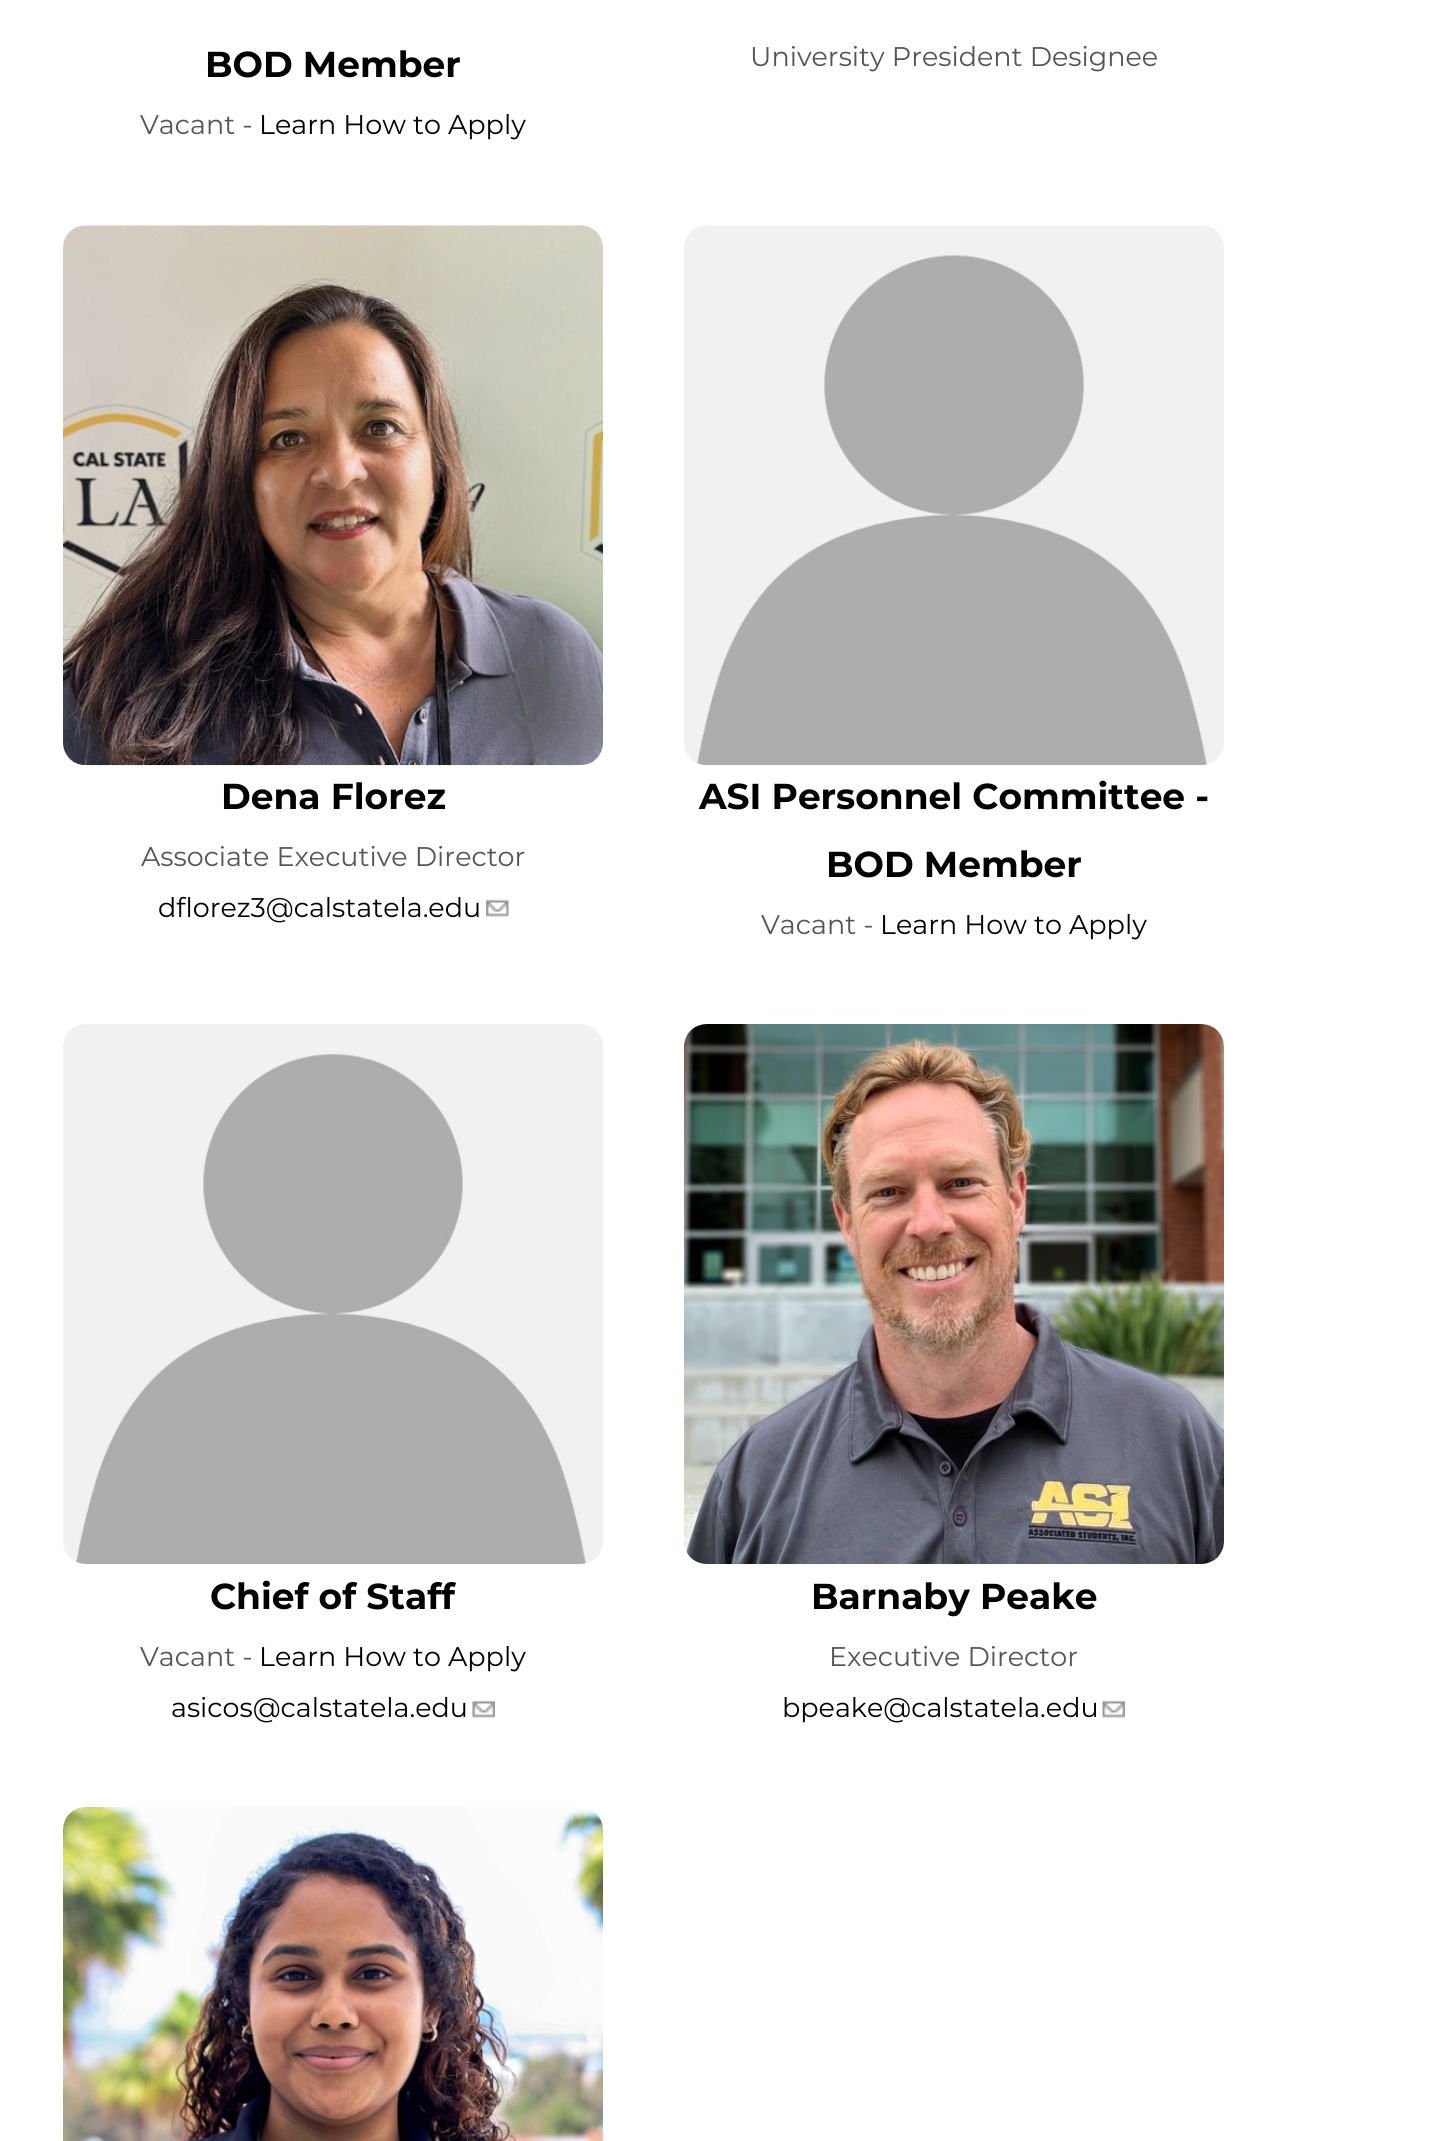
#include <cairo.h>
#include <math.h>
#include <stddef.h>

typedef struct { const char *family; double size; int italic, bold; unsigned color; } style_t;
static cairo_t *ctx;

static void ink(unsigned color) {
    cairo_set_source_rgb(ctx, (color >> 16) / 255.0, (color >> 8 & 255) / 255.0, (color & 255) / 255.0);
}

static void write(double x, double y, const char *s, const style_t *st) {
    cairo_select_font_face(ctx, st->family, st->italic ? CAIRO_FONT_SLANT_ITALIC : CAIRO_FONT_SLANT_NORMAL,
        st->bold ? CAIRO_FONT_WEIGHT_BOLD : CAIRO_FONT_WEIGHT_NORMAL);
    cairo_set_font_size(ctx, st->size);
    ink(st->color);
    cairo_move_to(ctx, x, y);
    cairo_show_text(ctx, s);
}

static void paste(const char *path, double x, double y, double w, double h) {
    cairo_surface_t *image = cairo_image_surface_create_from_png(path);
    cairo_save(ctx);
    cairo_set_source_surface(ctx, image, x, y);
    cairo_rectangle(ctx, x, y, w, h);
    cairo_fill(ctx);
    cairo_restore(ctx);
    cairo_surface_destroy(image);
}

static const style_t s1 = {"Montserrat", 36, 0, 1, 0x000000};
static const style_t s2 = {"Montserrat", 27, 0, 0, 0x555555};
static const style_t s3 = {"Montserrat", 27, 0, 0, 0x000000};

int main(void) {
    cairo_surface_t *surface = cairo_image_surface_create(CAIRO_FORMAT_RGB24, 1455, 2141);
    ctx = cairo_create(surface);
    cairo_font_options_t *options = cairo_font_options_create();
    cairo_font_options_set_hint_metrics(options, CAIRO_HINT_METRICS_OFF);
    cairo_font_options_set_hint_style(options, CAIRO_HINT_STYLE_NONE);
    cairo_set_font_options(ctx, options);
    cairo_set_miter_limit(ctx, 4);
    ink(0xffffff);
    cairo_paint(ctx);
    write(205, 77, "BOD Member", &s1);
    write(140, 134, "Vacant -", &s2);
    write(259, 134, "Learn How to Apply", &s3);
    write(750, 66, "University President Designee", &s2);
    paste("pic1.png", 63, 225, 540, 541);
    write(221, 809, "Dena Florez", &s1);
    write(141, 866, "Associate Executive Director", &s2);
    write(158, 917, "dflorez3@calstatela.edu", &s3);
    paste("pic2.png", 486, 899, 23, 18);
    paste("pic3.png", 684, 225, 540, 541);
    write(699, 809, "ASI Personnel Committee -", &s1);
    write(826, 877, "BOD Member", &s1);
    write(761, 934, "Vacant -", &s2);
    write(880, 934, "Learn How to Apply", &s3);
    paste("pic4.png", 63, 1024, 540, 540);
    write(210, 1609, "Chief of Staff", &s1);
    write(140, 1666, "Vacant -", &s2);
    write(259, 1666, "Learn How to Apply", &s3);
    write(171, 1717, "asicos@calstatela.edu", &s3);
    paste("pic5.png", 472, 1700, 23, 18);
    paste("pic6.png", 684, 1024, 540, 540);
    write(811, 1609, "Barnaby Peake", &s1);
    write(829, 1666, "Executive Director", &s2);
    write(782, 1717, "bpeake@calstatela.edu", &s3);
    paste("pic5.png", 1102, 1700, 23, 18);
    paste("pic7.png", 63, 1807, 540, 334);
    cairo_surface_write_to_png(surface, "screenshot.png");
    cairo_font_options_destroy(options);
    cairo_destroy(ctx);
    cairo_surface_destroy(surface);
    return 0;
}
